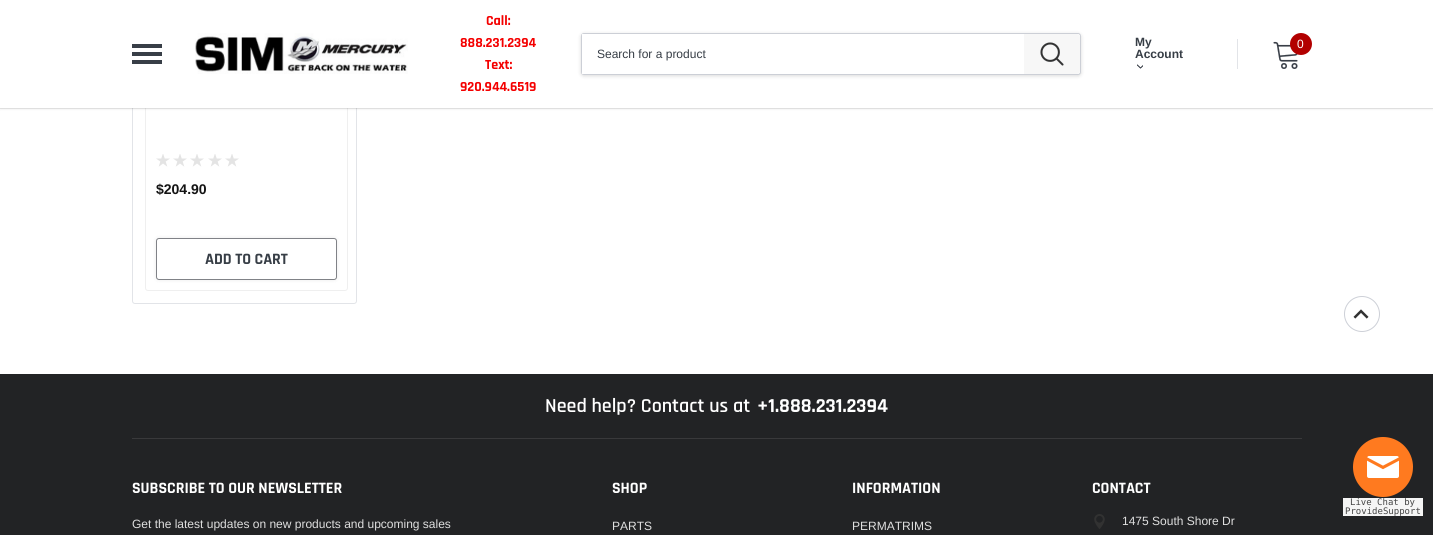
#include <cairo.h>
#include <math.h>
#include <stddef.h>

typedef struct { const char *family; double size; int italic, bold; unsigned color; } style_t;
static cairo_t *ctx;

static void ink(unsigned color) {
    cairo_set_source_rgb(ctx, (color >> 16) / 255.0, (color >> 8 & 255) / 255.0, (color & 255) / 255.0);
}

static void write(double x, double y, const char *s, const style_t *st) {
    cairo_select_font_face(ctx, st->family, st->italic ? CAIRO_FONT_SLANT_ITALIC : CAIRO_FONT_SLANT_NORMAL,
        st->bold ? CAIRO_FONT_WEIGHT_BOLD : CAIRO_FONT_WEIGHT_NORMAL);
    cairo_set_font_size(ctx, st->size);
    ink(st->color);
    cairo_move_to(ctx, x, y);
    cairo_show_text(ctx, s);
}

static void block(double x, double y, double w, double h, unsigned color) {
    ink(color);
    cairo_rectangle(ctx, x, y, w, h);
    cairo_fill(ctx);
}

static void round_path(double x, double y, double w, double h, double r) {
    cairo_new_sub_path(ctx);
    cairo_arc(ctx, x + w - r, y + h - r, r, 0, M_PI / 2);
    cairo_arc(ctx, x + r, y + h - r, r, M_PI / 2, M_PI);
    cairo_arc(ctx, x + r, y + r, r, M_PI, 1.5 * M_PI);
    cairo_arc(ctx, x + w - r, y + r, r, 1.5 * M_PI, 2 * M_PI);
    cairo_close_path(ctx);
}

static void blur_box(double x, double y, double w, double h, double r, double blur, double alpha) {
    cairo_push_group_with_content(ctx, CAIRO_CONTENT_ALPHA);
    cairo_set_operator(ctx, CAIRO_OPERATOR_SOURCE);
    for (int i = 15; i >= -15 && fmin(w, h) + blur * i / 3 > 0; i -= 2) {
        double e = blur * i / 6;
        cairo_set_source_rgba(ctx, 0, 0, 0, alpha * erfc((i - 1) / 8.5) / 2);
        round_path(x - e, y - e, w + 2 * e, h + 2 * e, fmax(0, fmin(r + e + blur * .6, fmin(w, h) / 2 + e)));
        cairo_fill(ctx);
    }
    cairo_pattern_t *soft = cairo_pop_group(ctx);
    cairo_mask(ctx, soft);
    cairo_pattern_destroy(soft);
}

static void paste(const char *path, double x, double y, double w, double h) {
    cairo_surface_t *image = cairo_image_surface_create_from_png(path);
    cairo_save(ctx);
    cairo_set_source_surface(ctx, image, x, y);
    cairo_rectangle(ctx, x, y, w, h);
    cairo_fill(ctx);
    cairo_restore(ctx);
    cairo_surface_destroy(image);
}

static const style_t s1 = {"Rajdhani", 14, 0, 1, 0xf40000};
static const style_t s2 = {"Arimo", 12, 0, 1, 0x373e46};
static const style_t s3 = {"Arimo", 12, 0, 0, 0xffffff};
static const style_t s4 = {"Arimo", 12, 0, 0, 0x373e46};
static const style_t s5 = {"Arimo", 14, 0, 1, 0x141414};
static const style_t s6 = {"Rajdhani", 16, 0, 1, 0x373e46};
static const style_t s7 = {"Rajdhani SemiBold", 20, 0, 0, 0xffffff};
static const style_t s8 = {"Rajdhani", 20, 0, 1, 0xffffff};
static const style_t s9 = {"Rajdhani", 16, 0, 1, 0xffffff};
static const style_t s10 = {"Arimo", 12, 0, 0, 0xdfdfdf};
static const style_t s11 = {"DejaVu Sans Mono", 9, 0, 0, 0x444444};

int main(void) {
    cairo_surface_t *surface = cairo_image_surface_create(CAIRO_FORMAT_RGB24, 1433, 535);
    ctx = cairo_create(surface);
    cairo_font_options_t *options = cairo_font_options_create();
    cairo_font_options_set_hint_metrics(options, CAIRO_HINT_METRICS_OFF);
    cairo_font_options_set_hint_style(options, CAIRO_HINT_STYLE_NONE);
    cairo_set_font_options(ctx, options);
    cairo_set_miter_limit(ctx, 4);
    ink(0xffffff);
    cairo_paint(ctx);
    round_path(132.5, -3.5, 224, 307, 2.5);
    ink(0xe2e4e8);
    cairo_set_line_width(ctx, 1);
    cairo_stroke(ctx);
    round_path(145.5, -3.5, 202, 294, 2.5);
    ink(0xefefef);
    cairo_stroke(ctx);
    ink(0x000000);
    blur_box(0, 1, 1433, 108, 0, 1, 0.1);
    cairo_rectangle(ctx, -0.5, -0.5, 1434, 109);
    cairo_set_source_rgba(ctx, 0, 0, 0, 0.06);
    cairo_stroke(ctx);
    block(0, 0, 1433, 108, 0xffffff);
    block(132, 52, 30, 4, 0x383e47);
    block(132, 44, 30, 4, 0x383e47);
    block(132, 60, 30, 4, 0x383e47);
    paste("pic1.png", 195, 33, 213, 41);
    write(486, 25, "Call:", &s1);
    write(460, 47, "888.231.2394", &s1);
    write(485, 69, "Text:", &s1);
    write(460, 91, "920.944.6519", &s1);
    write(1135, 46, "My", &s2);
    write(1135, 58, "Account", &s2);
    paste("pic2.png", 1137, 64, 6, 5);
    block(1237, 39, 1, 30, 0xe2e4e8);
    paste("pic3.png", 1273, 41, 25, 28);
    ink(0xb20000);
    cairo_arc(ctx, 1301, 44, 11, 0, 2 * M_PI);
    cairo_fill(ctx);
    write(1297, 48, "0", &s3);
    ink(0x000000);
    blur_box(581, 34, 500, 42, 3, 2, 0.15);
    ink(0xffffff);
    round_path(581.5, 33.5, 499, 41, 2.5);
    cairo_fill_preserve(ctx);
    ink(0xcccfd6);
    cairo_stroke(ctx);
    block(582, 34, 2, 40, 0xffffff);
    write(597, 58, "Search for a product", &s4);
    ink(0xf7f7f7);
    cairo_new_path(ctx);
    cairo_move_to(ctx, 1024, 34);
    cairo_line_to(ctx, 1077, 34);
    cairo_curve_to(ctx, 1078.5, 34, 1080, 35.5, 1080, 37);
    cairo_line_to(ctx, 1080, 71);
    cairo_curve_to(ctx, 1080, 72.5, 1078.5, 74, 1077, 74);
    cairo_line_to(ctx, 1024, 74);
    cairo_close_path(ctx);
    cairo_fill(ctx);
    paste("pic4.png", 1040, 42, 24, 24);
    paste("pic5.png", 156, 154, 14, 13);
    paste("pic5.png", 173, 154, 14, 13);
    paste("pic5.png", 190, 154, 14, 13);
    paste("pic5.png", 208, 154, 14, 13);
    paste("pic5.png", 225, 154, 14, 13);
    write(156, 194, "$204.90", &s5);
    ink(0x000000);
    blur_box(155, 237, 183, 44, 4, 1.5, 0.05);
    ink(0xffffff);
    round_path(156.5, 238.5, 180, 41, 2.5);
    cairo_fill_preserve(ctx);
    ink(0x808287);
    cairo_stroke(ctx);
    write(205, 264, "ADD TO CART", &s6);
    cairo_new_path(ctx);
    cairo_arc(ctx, 1362, 314, 17.5, 0, 2 * M_PI);
    ink(0xcdd0d7);
    cairo_stroke(ctx);
    paste("pic6.png", 1353, 309, 16, 10);
    block(0, 374, 1433, 161, 0x222325);
    block(132, 438, 1170, 1, 0x39393b);
    write(545, 412, "Need help? Contact us at", &s7);
    write(757, 412, "+1.888.231.2394", &s8);
    write(132, 493, "SUBSCRIBE TO OUR NEWSLETTER", &s9);
    write(132, 528, "Get the latest updates on new products and upcoming sales", &s10);
    write(612, 493, "SHOP", &s9);
    write(612, 530, "PARTS", &s10);
    write(852, 493, "INFORMATION", &s9);
    write(852, 530, "PERMATRIMS", &s10);
    write(1092, 493, "CONTACT", &s9);
    paste("pic7.png", 1094, 514, 11, 15);
    write(1122, 525, "1475 South Shore Dr", &s10);
    paste("pic8.png", 1353, 437, 60, 60);
    block(1343, 498, 80, 18, 0xf5f5f5);
    write(1350, 505, "Live Chat by", &s11);
    write(1345, 514, "ProvideSupport", &s11);
    cairo_surface_write_to_png(surface, "screenshot.png");
    cairo_font_options_destroy(options);
    cairo_destroy(ctx);
    cairo_surface_destroy(surface);
    return 0;
}
